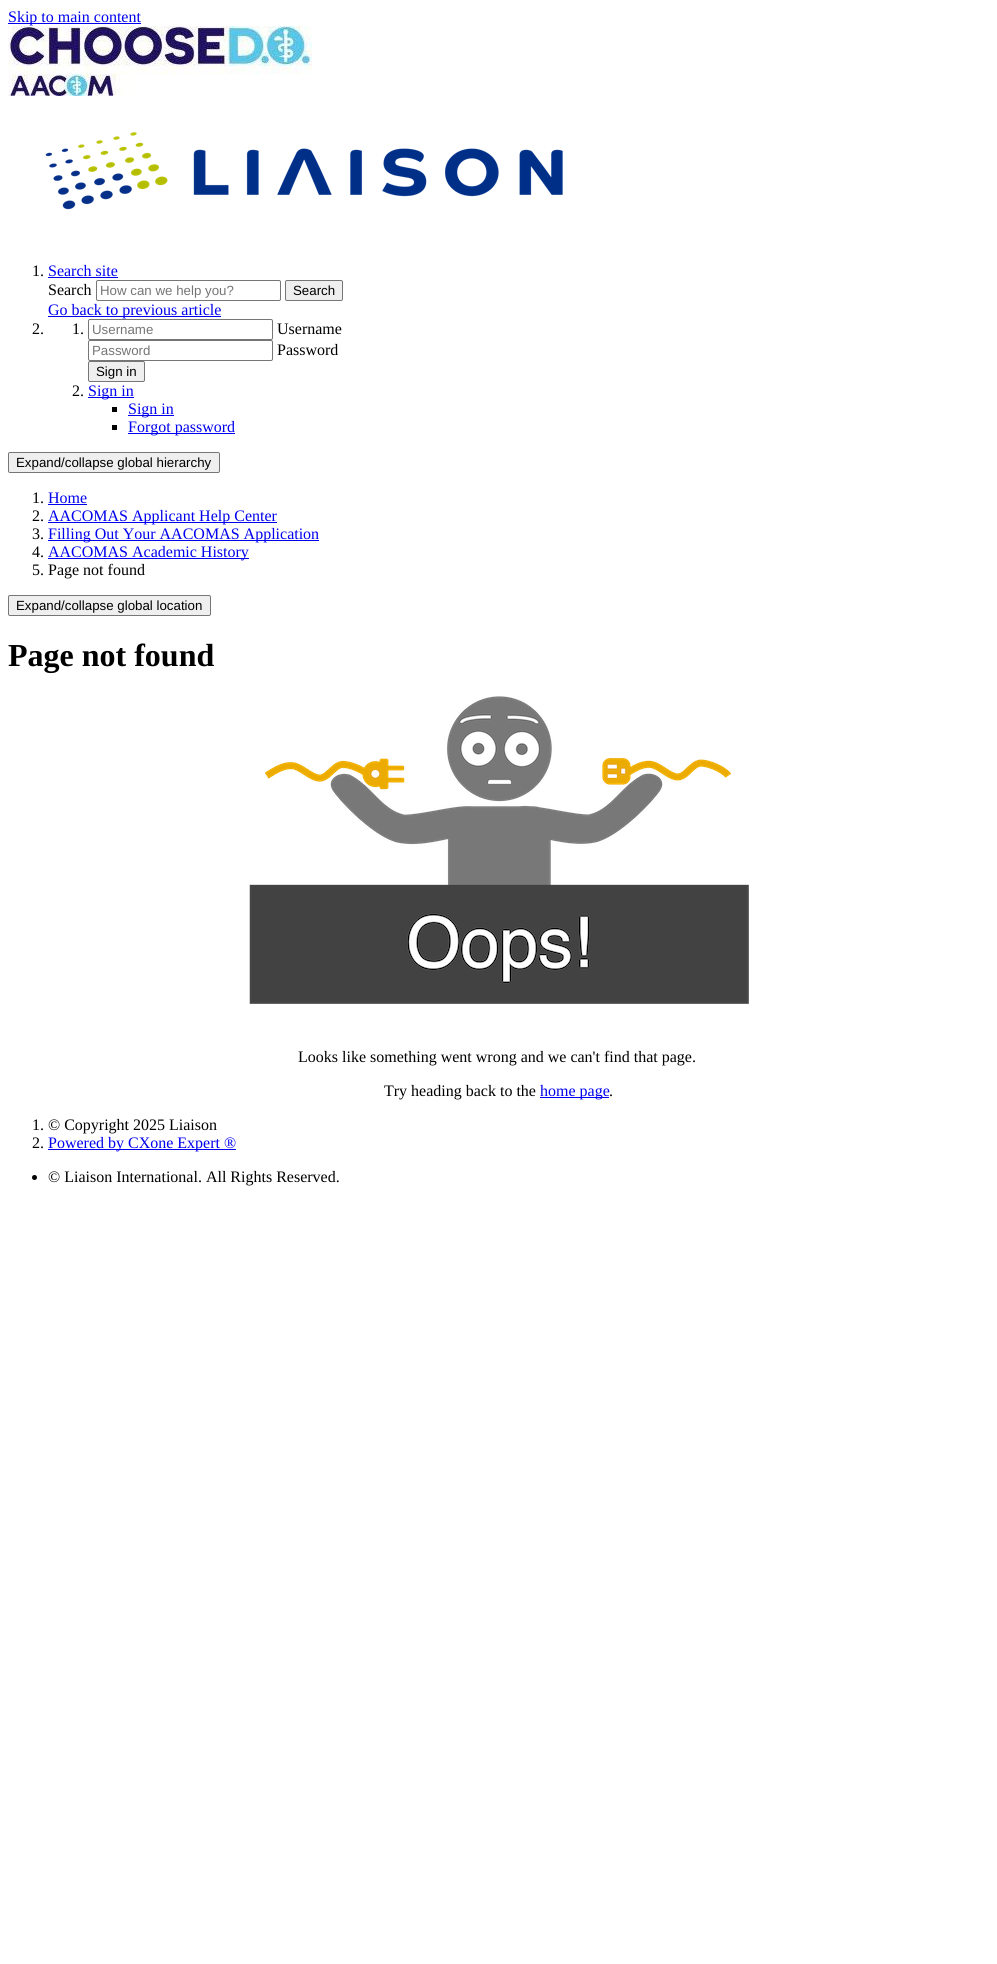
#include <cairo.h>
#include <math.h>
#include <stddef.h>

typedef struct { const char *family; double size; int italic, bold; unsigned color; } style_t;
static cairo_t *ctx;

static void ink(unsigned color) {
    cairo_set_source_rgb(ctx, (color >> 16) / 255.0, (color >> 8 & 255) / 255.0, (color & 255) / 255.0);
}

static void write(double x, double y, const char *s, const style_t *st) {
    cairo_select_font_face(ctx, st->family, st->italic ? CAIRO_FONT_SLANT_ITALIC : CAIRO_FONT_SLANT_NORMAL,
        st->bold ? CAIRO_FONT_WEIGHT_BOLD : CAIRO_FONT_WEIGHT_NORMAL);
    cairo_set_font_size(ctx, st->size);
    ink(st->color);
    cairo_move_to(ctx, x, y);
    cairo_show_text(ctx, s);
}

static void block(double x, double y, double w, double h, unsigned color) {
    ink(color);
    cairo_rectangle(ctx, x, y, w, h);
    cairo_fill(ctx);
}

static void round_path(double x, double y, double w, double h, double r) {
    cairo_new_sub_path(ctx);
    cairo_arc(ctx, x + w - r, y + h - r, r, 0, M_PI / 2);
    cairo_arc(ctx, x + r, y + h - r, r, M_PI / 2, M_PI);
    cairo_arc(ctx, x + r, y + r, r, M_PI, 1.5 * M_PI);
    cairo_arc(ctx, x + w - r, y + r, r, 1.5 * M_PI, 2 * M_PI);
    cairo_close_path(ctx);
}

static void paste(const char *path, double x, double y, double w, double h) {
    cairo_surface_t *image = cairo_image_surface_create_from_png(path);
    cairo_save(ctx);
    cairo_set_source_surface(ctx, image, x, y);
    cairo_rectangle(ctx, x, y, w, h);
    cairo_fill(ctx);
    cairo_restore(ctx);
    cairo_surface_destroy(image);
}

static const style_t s1 = {"Liberation Serif", 16, 0, 0, 0x0000ee};
static const style_t s2 = {"Liberation Serif", 16, 0, 0, 0x000000};
static const style_t s3 = {"Liberation Sans", 13.3, 0, 0, 0x757575};
static const style_t s4 = {"Liberation Sans", 13.3, 0, 0, 0x000000};
static const style_t s5 = {"Liberation Serif", 32, 0, 1, 0x000000};

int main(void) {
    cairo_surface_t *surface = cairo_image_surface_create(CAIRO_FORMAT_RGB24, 997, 1964);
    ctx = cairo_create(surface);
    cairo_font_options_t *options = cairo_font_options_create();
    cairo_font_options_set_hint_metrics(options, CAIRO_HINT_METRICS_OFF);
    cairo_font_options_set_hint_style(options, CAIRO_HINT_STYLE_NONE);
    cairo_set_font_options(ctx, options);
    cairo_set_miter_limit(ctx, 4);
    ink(0xffffff);
    cairo_paint(ctx);
    block(8, 23, 133, 1, 0x0000ee);
    write(8, 22, "Skip to main content", &s1);
    paste("pic1.png", 8, 26, 304, 70);
    paste("pic2.png", 45, 132, 518, 78);
    write(32, 276, "1.", &s2);
    write(48, 276, "Search site", &s1);
    block(48, 277, 70, 1, 0x0000ee);
    write(48, 295, "Search", &s2);
    round_path(96.5, 280.5, 184, 20, 1.5);
    ink(0x767676);
    cairo_set_line_width(ctx, 1);
    cairo_stroke(ctx);
    write(100, 295, "How can we help you?", &s3);
    ink(0xefefef);
    round_path(285.5, 280.5, 57, 20, 1.5);
    cairo_fill_preserve(ctx);
    ink(0x767676);
    cairo_stroke(ctx);
    write(293, 295, "Search", &s4);
    block(48, 316, 173, 1, 0x0000ee);
    write(48, 315, "Go back to previous article", &s1);
    write(32, 334, "2.", &s2);
    write(72, 334, "1.", &s2);
    round_path(88.5, 319.5, 184, 20, 1.5);
    ink(0x767676);
    cairo_stroke(ctx);
    write(92, 334, "Username", &s3);
    write(277, 334, "Username", &s2);
    round_path(88.5, 340.5, 184, 20, 1.5);
    ink(0x767676);
    cairo_stroke(ctx);
    write(92, 355, "Password", &s3);
    write(277, 355, "Password", &s2);
    ink(0xefefef);
    round_path(88.5, 361.5, 56, 20, 1.5);
    cairo_fill_preserve(ctx);
    ink(0x767676);
    cairo_stroke(ctx);
    write(96, 376, "Sign in", &s4);
    write(72, 396, "2.", &s2);
    block(88, 397, 46, 1, 0x0000ee);
    write(88, 396, "Sign in", &s1);
    block(112, 407, 5, 5, 0x000000);
    block(128, 415, 46, 1, 0x0000ee);
    write(128, 414, "Sign in", &s1);
    block(112, 425, 5, 5, 0x000000);
    block(128, 433, 107, 1, 0x0000ee);
    write(128, 432, "Forgot password", &s1);
    ink(0xefefef);
    round_path(8.5, 452.5, 211, 20, 1.5);
    cairo_fill_preserve(ctx);
    ink(0x767676);
    cairo_stroke(ctx);
    write(16, 467, "Expand/collapse global hierarchy", &s4);
    write(32, 503, "1.", &s2);
    write(48, 503, "Home", &s1);
    block(48, 504, 39, 1, 0x0000ee);
    write(32, 521, "2.", &s2);
    block(48, 522, 229, 1, 0x0000ee);
    write(48, 521, "AACOMAS Applicant Help Center", &s1);
    write(32, 539, "3.", &s2);
    block(48, 540, 271, 1, 0x0000ee);
    write(48, 539, "Filling Out Your AACOMAS Application", &s1);
    write(32, 557, "4.", &s2);
    block(48, 558, 201, 1, 0x0000ee);
    write(48, 557, "AACOMAS Academic History", &s1);
    write(32, 575, "5. Page not found", &s2);
    ink(0xefefef);
    round_path(8.5, 595.5, 202, 20, 1.5);
    cairo_fill_preserve(ctx);
    ink(0x767676);
    cairo_stroke(ctx);
    write(16, 610, "Expand/collapse global location", &s4);
    write(8, 666, "Page not found", &s5);
    paste("pic3.png", 249, 696, 500, 308);
    write(298, 1062, "Looks like something went wrong and we can't find that page.", &s2);
    write(384, 1096, "Try heading back to the", &s2);
    block(540, 1097, 69, 1, 0x0000ee);
    write(540, 1096, "home page", &s1);
    write(609, 1096, ".", &s2);
    write(32, 1130, "1. © Copyright 2025 Liaison", &s2);
    write(32, 1148, "2.", &s2);
    block(48, 1149, 188, 1, 0x0000ee);
    write(48, 1148, "Powered by CXone Expert ®", &s1);
    ink(0x000000);
    cairo_new_path(ctx);
    cairo_arc(ctx, 34.5, 1177.5, 2.5, 0, 2 * M_PI);
    cairo_fill(ctx);
    write(48, 1182, "© Liaison International. All Rights Reserved.", &s2);
    cairo_surface_write_to_png(surface, "screenshot.png");
    cairo_font_options_destroy(options);
    cairo_destroy(ctx);
    cairo_surface_destroy(surface);
    return 0;
}
